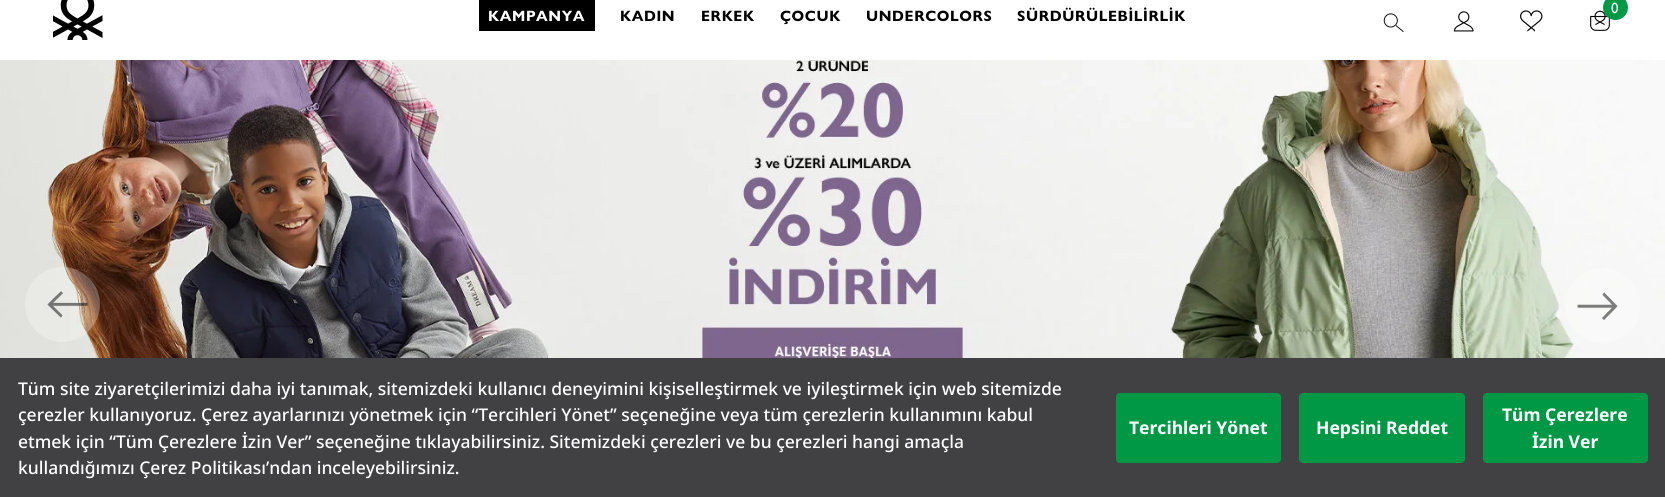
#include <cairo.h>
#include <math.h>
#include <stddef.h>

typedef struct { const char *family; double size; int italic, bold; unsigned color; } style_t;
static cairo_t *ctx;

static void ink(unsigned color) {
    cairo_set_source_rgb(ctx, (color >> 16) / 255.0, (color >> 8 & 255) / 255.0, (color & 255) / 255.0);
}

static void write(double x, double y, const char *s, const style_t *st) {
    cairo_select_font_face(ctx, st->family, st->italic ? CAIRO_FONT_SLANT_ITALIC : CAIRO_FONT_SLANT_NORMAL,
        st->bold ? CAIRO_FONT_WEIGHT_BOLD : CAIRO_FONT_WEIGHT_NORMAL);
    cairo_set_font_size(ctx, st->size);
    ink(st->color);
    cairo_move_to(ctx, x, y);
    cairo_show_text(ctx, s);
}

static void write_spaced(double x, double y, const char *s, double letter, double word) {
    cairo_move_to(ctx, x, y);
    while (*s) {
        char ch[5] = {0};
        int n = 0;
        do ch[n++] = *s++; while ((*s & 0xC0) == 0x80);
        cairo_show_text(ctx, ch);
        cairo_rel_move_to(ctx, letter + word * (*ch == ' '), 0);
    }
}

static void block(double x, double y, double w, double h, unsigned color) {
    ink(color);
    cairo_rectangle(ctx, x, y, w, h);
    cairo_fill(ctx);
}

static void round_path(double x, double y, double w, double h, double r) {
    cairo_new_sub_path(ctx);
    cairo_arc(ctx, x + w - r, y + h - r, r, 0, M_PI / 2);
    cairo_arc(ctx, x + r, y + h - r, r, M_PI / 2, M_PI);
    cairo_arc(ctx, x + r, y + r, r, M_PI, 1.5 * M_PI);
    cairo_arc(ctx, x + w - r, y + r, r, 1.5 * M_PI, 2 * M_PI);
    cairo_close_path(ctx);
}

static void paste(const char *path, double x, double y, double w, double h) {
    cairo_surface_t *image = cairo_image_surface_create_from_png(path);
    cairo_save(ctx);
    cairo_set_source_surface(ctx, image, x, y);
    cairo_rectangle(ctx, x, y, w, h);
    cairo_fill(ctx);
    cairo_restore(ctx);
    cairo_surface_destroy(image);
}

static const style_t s1 = {"Noto Sans Medium", 17.5, 0, 0, 0xffffff};
static const style_t s2 = {"Noto Sans", 17.5, 0, 1, 0xffffff};

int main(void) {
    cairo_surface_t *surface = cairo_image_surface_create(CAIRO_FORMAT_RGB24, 1665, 497);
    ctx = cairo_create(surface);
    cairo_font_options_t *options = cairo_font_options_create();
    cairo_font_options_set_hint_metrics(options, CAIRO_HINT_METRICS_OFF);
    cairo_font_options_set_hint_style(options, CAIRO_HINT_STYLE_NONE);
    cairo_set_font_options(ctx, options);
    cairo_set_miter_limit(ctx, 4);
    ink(0xffffff);
    cairo_paint(ctx);
    paste("pic1.png", 53, 0, 50, 40);
    block(479, 0, 116, 31, 0x000000);
    cairo_select_font_face(ctx, "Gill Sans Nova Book", CAIRO_FONT_SLANT_NORMAL, CAIRO_FONT_WEIGHT_BOLD);
    cairo_set_font_size(ctx, 15);
    ink(0xffffff);
    write_spaced(488, 21, "KAMPANYA", 0.6, 0);
    ink(0x000000);
    write_spaced(620, 21, "KADIN", 0.6, 0);
    write_spaced(701, 21, "ERKEK", 0.6, 0);
    write_spaced(780, 21, "ÇOCUK", 0.6, 0);
    write_spaced(866, 21, "UNDERCOLORS", 0.6, 0);
    write_spaced(1017, 21, "SÜRDÜRÜLEBİLİRLİK", 0.6, 0);
    paste("pic2.png", 1590, 10, 20, 21);
    ink(0x009845);
    cairo_arc(ctx, 1615.5, 7.5, 12.5, 0, 2 * M_PI);
    cairo_fill(ctx);
    cairo_select_font_face(ctx, "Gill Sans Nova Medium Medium", CAIRO_FONT_SLANT_NORMAL, CAIRO_FONT_WEIGHT_NORMAL);
    ink(0xffffff);
    write_spaced(1611, 13, "0", 0.6, 0);
    paste("pic3.png", 1383, 13, 21, 19);
    paste("pic4.png", 1453, 11, 21, 21);
    paste("pic5.png", 1520, 10, 23, 22);
    paste("pic6.png", 0, 60, 1665, 298);
    cairo_set_source_rgba(ctx, 1, 1, 1, 0.28);
    cairo_new_path(ctx);
    cairo_move_to(ctx, 62, 342);
    cairo_curve_to(ctx, 42, 342, 25, 325, 25, 304);
    cairo_curve_to(ctx, 25, 284, 42, 267, 62, 267);
    cairo_curve_to(ctx, 83, 267, 100, 284, 100, 304);
    cairo_curve_to(ctx, 100, 325, 83, 342, 62, 342);
    cairo_close_path(ctx);
    cairo_fill(ctx);
    paste("pic7.png", 47, 291, 41, 27);
    cairo_arc(ctx, 1602.5, 305.5, 37.5, 0, 2 * M_PI);
    cairo_fill(ctx);
    paste("pic8.png", 1577, 292, 41, 28);
    block(0, 358, 1665, 139, 0x414042);
    write(18, 395, "Tüm site ziyaretçilerimizi daha iyi tanımak, sitemizdeki kullanıcı deneyimini kişiselleştirmek ve iyileştirmek için web sitemizde", &s1);
    write(18, 421, "çerezler kullanıyoruz. Çerez ayarlarınızı yönetmek için “Tercihleri Yönet” seçeneğine veya tüm çerezlerin kullanımını kabul", &s1);
    write(18, 448, "etmek için “Tüm Çerezlere İzin Ver” seçeneğine tıklayabilirsiniz. Sitemizdeki çerezleri ve bu çerezleri hangi amaçla", &s1);
    write(18, 474, "kullandığımızı Çerez Politikası’ndan inceleyebilirsiniz.", &s1);
    ink(0x009845);
    round_path(1116, 393, 165, 70, 4);
    cairo_fill(ctx);
    write(1129, 434, "Tercihleri Yönet", &s2);
    ink(0x009845);
    round_path(1299, 393, 166, 70, 4);
    cairo_fill(ctx);
    write(1316, 434, "Hepsini Reddet", &s2);
    ink(0x009845);
    round_path(1483, 393, 165, 70, 4);
    cairo_fill(ctx);
    write(1502, 421, "Tüm Çerezlere", &s2);
    write(1532, 448, "İzin Ver", &s2);
    cairo_surface_write_to_png(surface, "screenshot.png");
    cairo_font_options_destroy(options);
    cairo_destroy(ctx);
    cairo_surface_destroy(surface);
    return 0;
}
